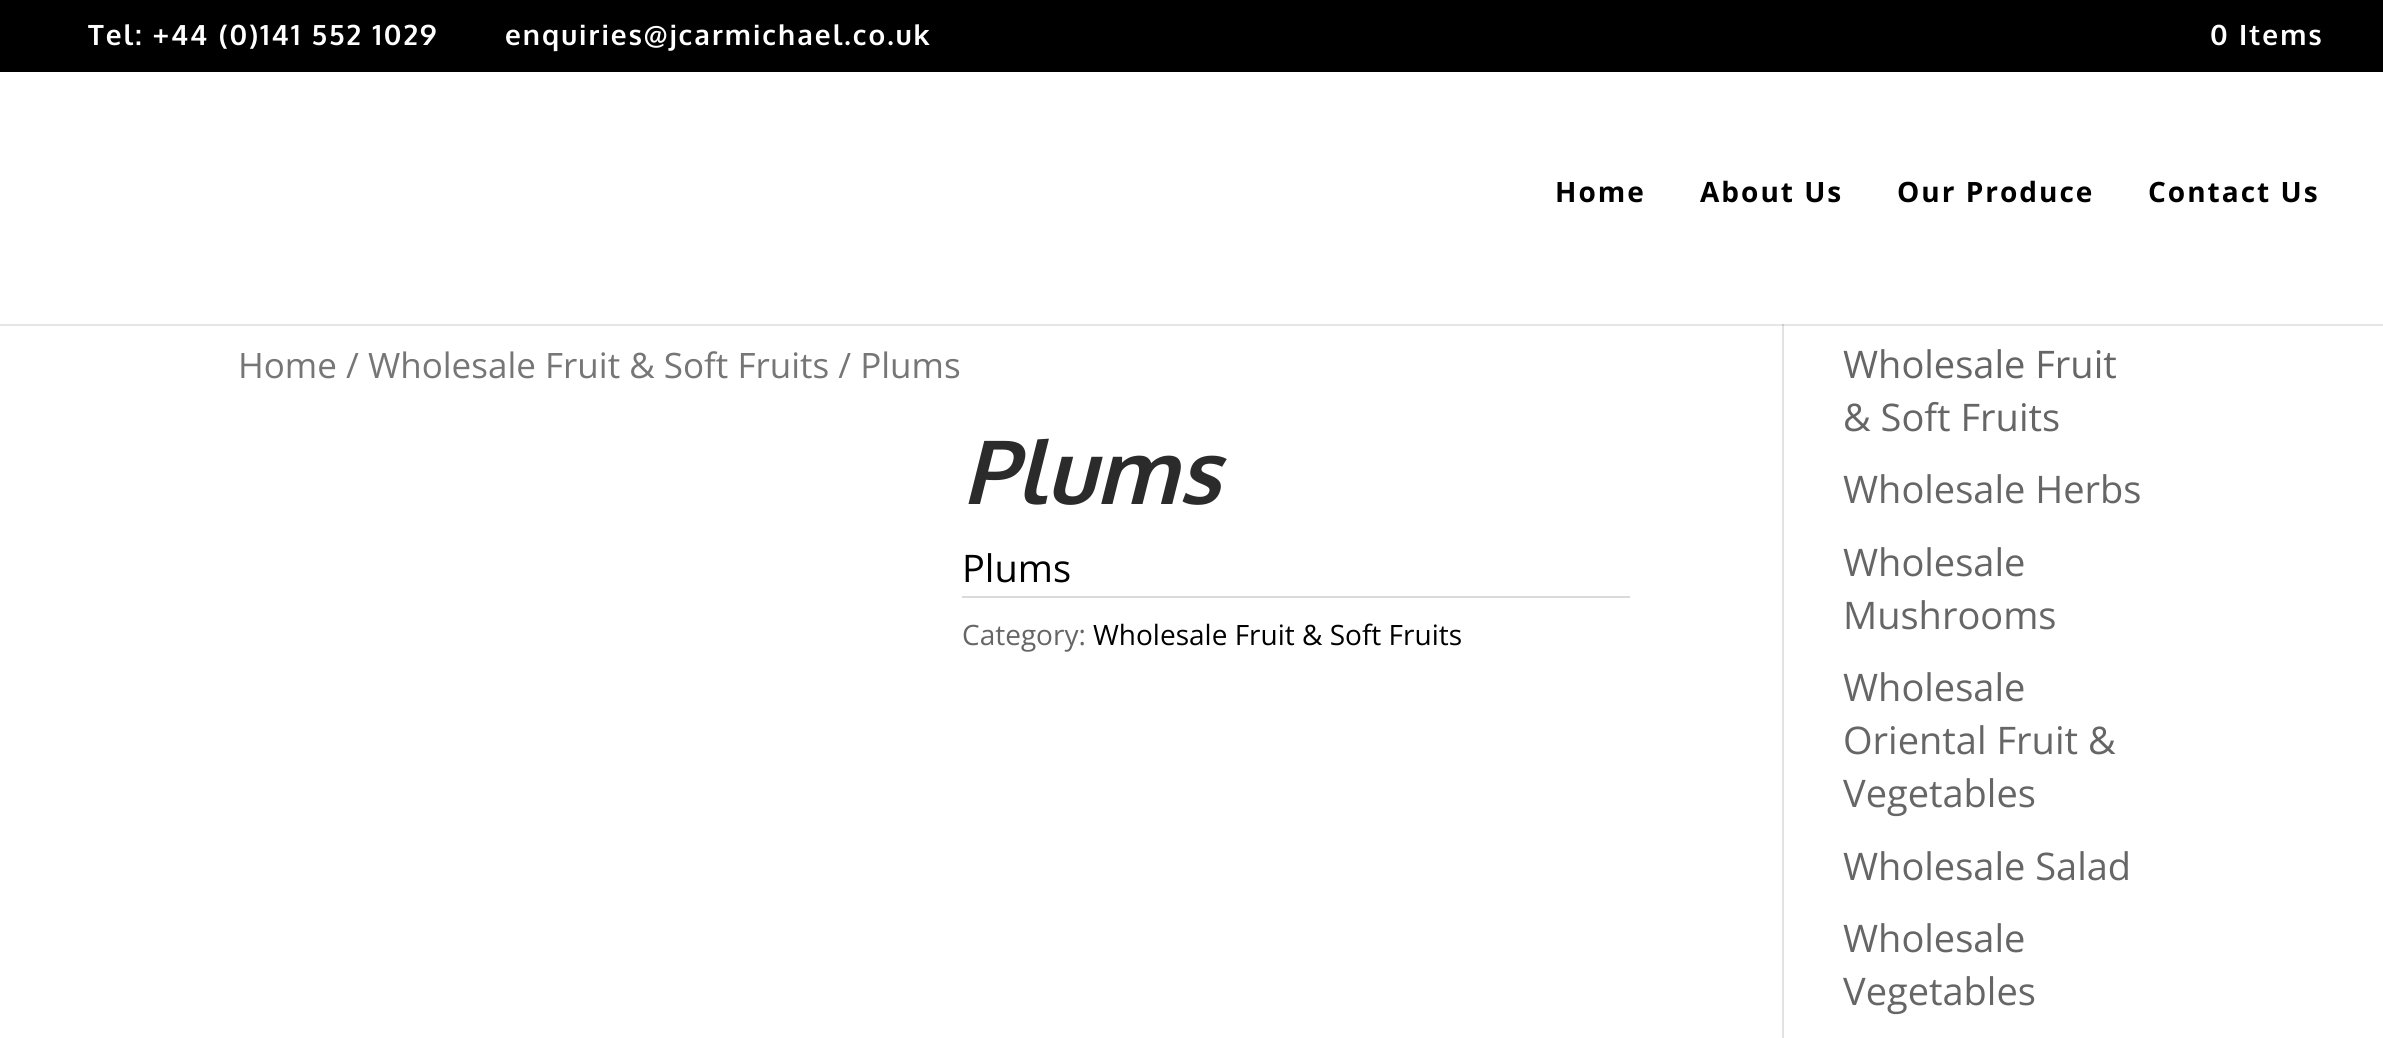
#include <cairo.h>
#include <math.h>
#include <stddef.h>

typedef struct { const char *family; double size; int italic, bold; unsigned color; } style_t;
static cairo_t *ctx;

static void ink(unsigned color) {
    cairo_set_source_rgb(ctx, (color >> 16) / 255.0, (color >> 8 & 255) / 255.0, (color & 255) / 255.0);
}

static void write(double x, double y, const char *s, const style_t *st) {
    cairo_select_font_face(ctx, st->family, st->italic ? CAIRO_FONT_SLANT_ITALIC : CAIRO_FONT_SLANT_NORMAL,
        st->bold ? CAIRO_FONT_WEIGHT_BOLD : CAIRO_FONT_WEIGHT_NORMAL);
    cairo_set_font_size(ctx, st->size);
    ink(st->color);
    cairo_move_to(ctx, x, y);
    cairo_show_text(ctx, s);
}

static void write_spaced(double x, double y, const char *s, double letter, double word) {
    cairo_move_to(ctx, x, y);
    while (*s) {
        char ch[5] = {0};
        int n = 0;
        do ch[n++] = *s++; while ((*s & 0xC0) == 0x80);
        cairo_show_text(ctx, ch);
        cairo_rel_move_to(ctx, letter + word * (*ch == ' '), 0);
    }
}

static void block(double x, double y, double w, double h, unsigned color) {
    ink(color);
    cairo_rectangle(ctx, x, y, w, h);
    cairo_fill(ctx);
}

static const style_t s1 = {"Open Sans", 35, 0, 0, 0x767676};
static const style_t s2 = {"Oxygen", 88, 1, 1, 0x2b2b2b};
static const style_t s3 = {"Open Sans", 38, 0, 0, 0x000000};
static const style_t s4 = {"Open Sans", 28, 0, 0, 0x666666};
static const style_t s5 = {"Open Sans", 28, 0, 0, 0x000000};
static const style_t s6 = {"Open Sans", 38, 0, 0, 0x666666};

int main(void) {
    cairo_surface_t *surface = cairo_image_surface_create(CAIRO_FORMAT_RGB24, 2383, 1038);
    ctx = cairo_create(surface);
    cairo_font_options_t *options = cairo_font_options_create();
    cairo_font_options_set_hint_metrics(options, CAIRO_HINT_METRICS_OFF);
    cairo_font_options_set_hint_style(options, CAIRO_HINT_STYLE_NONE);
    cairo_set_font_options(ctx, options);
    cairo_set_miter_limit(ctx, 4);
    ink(0xffffff);
    cairo_paint(ctx);
    block(0, 324, 2383, 2, 0xe6e6e6);
    block(0, 0, 2383, 72, 0x000000);
    cairo_select_font_face(ctx, "Oxygen", CAIRO_FONT_SLANT_NORMAL, CAIRO_FONT_WEIGHT_BOLD);
    cairo_set_font_size(ctx, 28);
    ink(0xffffff);
    write_spaced(88, 45, "Tel: +44 (0)141 552 1029", 2, 0);
    write_spaced(505, 45, "enquiries@jcarmichael.co.uk", 2, 0);
    write_spaced(2210, 45, "0 Items", 2, 0);
    cairo_select_font_face(ctx, "Open Sans", CAIRO_FONT_SLANT_NORMAL, CAIRO_FONT_WEIGHT_BOLD);
    ink(0x000000);
    write_spaced(1555, 202, "Home", 2, 0);
    write_spaced(1700, 202, "About Us", 2, 0);
    write_spaced(1897, 202, "Our Produce", 2, 0);
    write_spaced(2148, 202, "Contact Us", 2, 0);
    block(1782, 326, 2, 712, 0xe2e2e2);
    block(1782, 324, 2, 2, 0xcbcbcb);
    write(238, 378, "Home / Wholesale Fruit & Soft Fruits / Plums", &s1);
    write(962, 504, "Plums", &s2);
    write(962, 582, "Plums", &s3);
    block(962, 596, 668, 2, 0xdadada);
    write(962, 645, "Category:", &s4);
    write(1093, 645, "Wholesale Fruit & Soft Fruits", &s5);
    write(1843, 378, "Wholesale Fruit", &s6);
    write(1843, 431, "& Soft Fruits", &s6);
    write(1843, 503, "Wholesale Herbs", &s6);
    write(1843, 576, "Wholesale", &s6);
    write(1843, 629, "Mushrooms", &s6);
    write(1843, 701, "Wholesale", &s6);
    write(1843, 754, "Oriental Fruit &", &s6);
    write(1843, 807, "Vegetables", &s6);
    write(1843, 880, "Wholesale Salad", &s6);
    write(1843, 952, "Wholesale", &s6);
    write(1843, 1005, "Vegetables", &s6);
    cairo_surface_write_to_png(surface, "screenshot.png");
    cairo_font_options_destroy(options);
    cairo_destroy(ctx);
    cairo_surface_destroy(surface);
    return 0;
}
